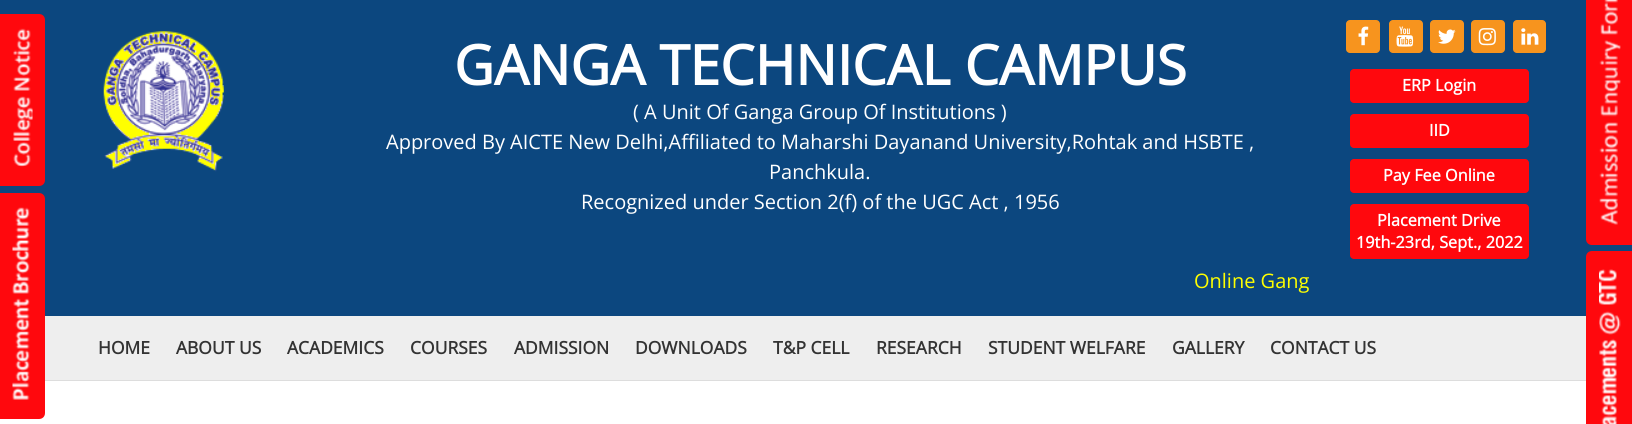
#include <cairo.h>
#include <math.h>
#include <stddef.h>

typedef struct { const char *family; double size; int italic, bold; unsigned color; } style_t;
static cairo_t *ctx;

static void ink(unsigned color) {
    cairo_set_source_rgb(ctx, (color >> 16) / 255.0, (color >> 8 & 255) / 255.0, (color & 255) / 255.0);
}

static void write(double x, double y, const char *s, const style_t *st) {
    cairo_select_font_face(ctx, st->family, st->italic ? CAIRO_FONT_SLANT_ITALIC : CAIRO_FONT_SLANT_NORMAL,
        st->bold ? CAIRO_FONT_WEIGHT_BOLD : CAIRO_FONT_WEIGHT_NORMAL);
    cairo_set_font_size(ctx, st->size);
    ink(st->color);
    cairo_move_to(ctx, x, y);
    cairo_show_text(ctx, s);
}

static void block(double x, double y, double w, double h, unsigned color) {
    ink(color);
    cairo_rectangle(ctx, x, y, w, h);
    cairo_fill(ctx);
}

static void round_path(double x, double y, double w, double h, double r) {
    cairo_new_sub_path(ctx);
    cairo_arc(ctx, x + w - r, y + h - r, r, 0, M_PI / 2);
    cairo_arc(ctx, x + r, y + h - r, r, M_PI / 2, M_PI);
    cairo_arc(ctx, x + r, y + r, r, M_PI, 1.5 * M_PI);
    cairo_arc(ctx, x + w - r, y + r, r, 1.5 * M_PI, 2 * M_PI);
    cairo_close_path(ctx);
}

static void paste(const char *path, double x, double y, double w, double h) {
    cairo_surface_t *image = cairo_image_surface_create_from_png(path);
    cairo_save(ctx);
    cairo_set_source_surface(ctx, image, x, y);
    cairo_rectangle(ctx, x, y, w, h);
    cairo_fill(ctx);
    cairo_restore(ctx);
    cairo_surface_destroy(image);
}

static const style_t s1 = {"Open Sans", 55, 0, 1, 0xffffff};
static const style_t s2 = {"Open Sans", 20, 0, 0, 0xffffff};
static const style_t s3 = {"Open Sans", 16.25, 0, 1, 0xffffff};
static const style_t s4 = {"Open Sans", 20, 0, 0, 0xffff00};
static const style_t s5 = {"Open Sans", 17.5, 0, 1, 0x333333};

int main(void) {
    cairo_surface_t *surface = cairo_image_surface_create(CAIRO_FORMAT_RGB24, 1632, 424);
    ctx = cairo_create(surface);
    cairo_font_options_t *options = cairo_font_options_create();
    cairo_font_options_set_hint_metrics(options, CAIRO_HINT_METRICS_OFF);
    cairo_font_options_set_hint_style(options, CAIRO_HINT_STYLE_NONE);
    cairo_set_font_options(ctx, options);
    cairo_set_miter_limit(ctx, 4);
    ink(0xffffff);
    cairo_paint(ctx);
    block(0, 0, 1632, 316, 0x0c477f);
    ink(0xff080d);
    cairo_new_path(ctx);
    cairo_move_to(ctx, 0, 14);
    cairo_line_to(ctx, 39, 14);
    cairo_curve_to(ctx, 42.5, 14, 45, 16.5, 45, 20);
    cairo_line_to(ctx, 45, 180);
    cairo_curve_to(ctx, 45, 183.5, 42.5, 186, 39, 186);
    cairo_line_to(ctx, 0, 186);
    cairo_close_path(ctx);
    cairo_fill(ctx);
    paste("pic1.png", 13, 28, 20, 139);
    cairo_new_path(ctx);
    cairo_move_to(ctx, 0, 193);
    cairo_line_to(ctx, 39, 193);
    cairo_curve_to(ctx, 42.5, 193, 45, 195.5, 45, 199);
    cairo_line_to(ctx, 45, 413);
    cairo_curve_to(ctx, 45, 416.5, 42.5, 419, 39, 419);
    cairo_line_to(ctx, 0, 419);
    cairo_close_path(ctx);
    cairo_fill(ctx);
    paste("pic2.png", 12, 207, 18, 193);
    paste("pic3.png", 103, 31, 121, 141);
    ink(0xf7941e);
    round_path(1346, 20, 34, 33, 4);
    cairo_fill(ctx);
    paste("pic4.png", 1358, 26, 11, 20);
    round_path(1389, 20, 34, 33, 4);
    cairo_fill(ctx);
    paste("pic5.png", 1396, 26, 18, 21);
    round_path(1430, 20, 34, 33, 4);
    cairo_fill(ctx);
    paste("pic6.png", 1438, 29, 18, 15);
    round_path(1471, 20, 34, 33, 4);
    cairo_fill(ctx);
    paste("pic7.png", 1478, 28, 18, 18);
    round_path(1513, 20, 33, 33, 4);
    cairo_fill(ctx);
    paste("pic8.png", 1521, 28, 18, 17);
    write(454, 85, "GANGA TECHNICAL CAMPUS", &s1);
    write(633, 119, "( A Unit Of Ganga Group Of Institutions )", &s2);
    write(386, 149, "Approved By AICTE New Delhi,Affiliated to Maharshi Dayanand University,Rohtak and HSBTE ,", &s2);
    write(769, 179, "Panchkula.", &s2);
    write(581, 209, "Recognized under Section 2(f) of the UGC Act , 1956", &s2);
    ink(0xff080d);
    round_path(1350, 69, 179, 34, 4);
    cairo_fill(ctx);
    write(1402, 91, "ERP Login", &s3);
    ink(0xff080d);
    round_path(1350, 114, 179, 34, 4);
    cairo_fill(ctx);
    write(1429, 136, "IID", &s3);
    ink(0xff080d);
    round_path(1350, 159, 179, 34, 4);
    cairo_fill(ctx);
    write(1383, 181, "Pay Fee Online", &s3);
    ink(0xff080d);
    round_path(1350, 204, 179, 55, 4);
    cairo_fill(ctx);
    write(1377, 226, "Placement Drive", &s3);
    write(1356, 248, "19th-23rd, Sept., 2022", &s3);
    write(1194, 288, "Online Gang", &s4);
    ink(0xff080d);
    cairo_new_path(ctx);
    cairo_move_to(ctx, 1592, -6);
    cairo_line_to(ctx, 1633, -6);
    cairo_line_to(ctx, 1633, 245);
    cairo_line_to(ctx, 1592, 245);
    cairo_curve_to(ctx, 1588.5, 245, 1586, 242.5, 1586, 239);
    cairo_line_to(ctx, 1586, 0);
    cairo_curve_to(ctx, 1586, -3.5, 1588.5, -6, 1592, -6);
    cairo_close_path(ctx);
    cairo_fill(ctx);
    paste("pic9.png", 1599, 0, 22, 225);
    cairo_new_path(ctx);
    cairo_move_to(ctx, 1592, 251);
    cairo_line_to(ctx, 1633, 251);
    cairo_line_to(ctx, 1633, 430);
    cairo_line_to(ctx, 1592, 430);
    cairo_curve_to(ctx, 1588.5, 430, 1586, 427.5, 1586, 424);
    cairo_line_to(ctx, 1586, 257);
    cairo_curve_to(ctx, 1586, 253.5, 1588.5, 251, 1592, 251);
    cairo_close_path(ctx);
    cairo_fill(ctx);
    paste("pic10.png", 1599, 269, 22, 155);
    block(45, 316, 1541, 64, 0xeeeeee);
    block(45, 380, 1541, 1, 0xdddddd);
    write(98, 354, "HOME", &s5);
    write(176, 354, "ABOUT US", &s5);
    write(287, 354, "ACADEMICS", &s5);
    write(410, 354, "COURSES", &s5);
    write(514, 354, "ADMISSION", &s5);
    write(635, 354, "DOWNLOADS", &s5);
    write(773, 354, "T&P CELL", &s5);
    write(876, 354, "RESEARCH", &s5);
    write(988, 354, "STUDENT WELFARE", &s5);
    write(1172, 354, "GALLERY", &s5);
    write(1270, 354, "CONTACT US", &s5);
    cairo_surface_write_to_png(surface, "screenshot.png");
    cairo_font_options_destroy(options);
    cairo_destroy(ctx);
    cairo_surface_destroy(surface);
    return 0;
}
